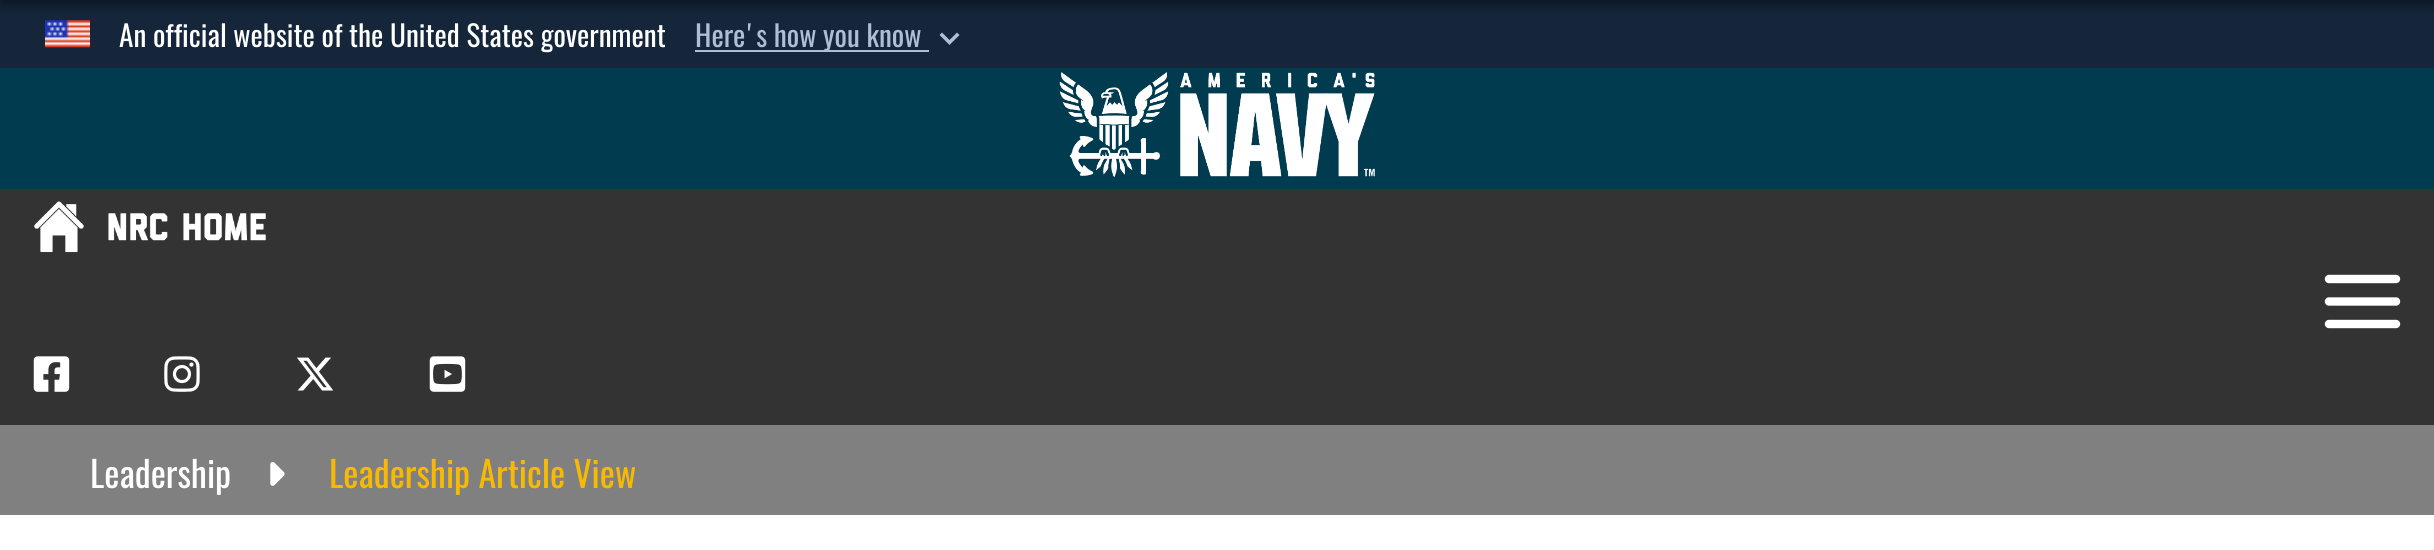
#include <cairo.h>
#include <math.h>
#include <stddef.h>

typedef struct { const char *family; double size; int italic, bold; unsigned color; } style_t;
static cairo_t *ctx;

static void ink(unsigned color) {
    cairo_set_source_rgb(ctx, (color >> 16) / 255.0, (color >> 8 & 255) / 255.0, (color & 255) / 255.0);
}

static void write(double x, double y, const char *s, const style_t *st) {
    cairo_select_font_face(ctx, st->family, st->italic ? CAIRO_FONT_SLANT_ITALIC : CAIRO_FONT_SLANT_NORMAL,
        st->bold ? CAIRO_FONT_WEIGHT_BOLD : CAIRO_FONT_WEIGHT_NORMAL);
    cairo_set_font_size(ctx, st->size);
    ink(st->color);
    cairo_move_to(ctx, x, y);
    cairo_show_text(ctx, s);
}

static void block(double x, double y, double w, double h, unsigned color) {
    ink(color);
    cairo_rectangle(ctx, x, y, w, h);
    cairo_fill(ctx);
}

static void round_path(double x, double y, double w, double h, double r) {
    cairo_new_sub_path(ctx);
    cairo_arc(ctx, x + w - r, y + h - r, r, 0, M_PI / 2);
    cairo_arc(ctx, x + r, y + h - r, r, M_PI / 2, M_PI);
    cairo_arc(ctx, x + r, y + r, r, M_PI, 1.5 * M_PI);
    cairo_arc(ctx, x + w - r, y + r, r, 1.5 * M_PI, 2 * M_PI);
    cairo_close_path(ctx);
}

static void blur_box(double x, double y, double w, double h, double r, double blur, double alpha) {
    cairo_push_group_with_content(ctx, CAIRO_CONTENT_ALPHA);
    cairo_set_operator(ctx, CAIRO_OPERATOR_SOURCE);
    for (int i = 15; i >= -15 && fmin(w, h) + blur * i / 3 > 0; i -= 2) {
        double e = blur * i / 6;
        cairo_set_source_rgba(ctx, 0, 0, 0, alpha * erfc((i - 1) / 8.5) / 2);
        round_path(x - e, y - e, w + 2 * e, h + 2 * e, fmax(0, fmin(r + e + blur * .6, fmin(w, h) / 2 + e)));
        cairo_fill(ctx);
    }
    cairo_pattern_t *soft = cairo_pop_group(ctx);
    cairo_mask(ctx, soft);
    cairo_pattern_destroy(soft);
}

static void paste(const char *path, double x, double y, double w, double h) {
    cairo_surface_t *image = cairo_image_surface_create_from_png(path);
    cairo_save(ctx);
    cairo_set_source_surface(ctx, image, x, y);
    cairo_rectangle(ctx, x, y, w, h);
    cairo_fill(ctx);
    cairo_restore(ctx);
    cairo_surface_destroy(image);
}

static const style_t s1 = {"Oswald", 29.25, 0, 0, 0xffffff};
static const style_t s2 = {"Oswald", 29.25, 0, 0, 0xaebfd4};
static const style_t s3 = {"Oswald", 36, 0, 0, 0xffffff};
static const style_t s4 = {"Oswald", 36, 0, 0, 0xf8ba01};

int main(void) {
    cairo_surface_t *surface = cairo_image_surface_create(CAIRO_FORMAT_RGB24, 2434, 550);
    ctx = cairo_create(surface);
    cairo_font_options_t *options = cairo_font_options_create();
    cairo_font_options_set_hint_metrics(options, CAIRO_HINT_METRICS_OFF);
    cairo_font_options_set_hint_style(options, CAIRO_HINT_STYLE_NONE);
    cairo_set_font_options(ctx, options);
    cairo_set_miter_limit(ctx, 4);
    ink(0xffffff);
    cairo_paint(ctx);
    block(0, 0, 2434, 68, 0x15263b);
    paste("pic1.png", 45, 20, 45, 28);
    write(119, 47, "An official website of the United States government", &s1);
    block(695, 50, 234, 2, 0xaebfd4);
    write(695, 47, "Here's how you know", &s2);
    cairo_new_path(ctx);
    cairo_move_to(ctx, 957, 32.5);
    cairo_line_to(ctx, 949.5, 40);
    cairo_line_to(ctx, 942, 32.5);
    cairo_line_to(ctx, 939.5, 35);
    cairo_line_to(ctx, 949.5, 45);
    cairo_line_to(ctx, 959.5, 35);
    cairo_close_path(ctx);
    cairo_fill(ctx);
    ink(0x020406);
    blur_box(0, -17, 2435, 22, 0, 5.5, 0.5);
    block(0, 68, 2434, 121, 0x003b4f);
    paste("pic2.png", 1059, 72, 316, 105);
    block(0, 189, 2434, 236, 0x333333);
    paste("pic3.png", 33, 201, 233, 52);
    paste("pic4.png", 33, 356, 37, 36);
    paste("pic5.png", 164, 356, 36, 36);
    paste("pic6.png", 297, 357, 37, 34);
    paste("pic7.png", 429, 356, 37, 36);
    cairo_new_path(ctx);
    cairo_move_to(ctx, 2329, 279);
    cairo_line_to(ctx, 2396, 279);
    cairo_move_to(ctx, 2329, 301.5);
    cairo_line_to(ctx, 2396, 301.5);
    cairo_move_to(ctx, 2329, 324);
    cairo_line_to(ctx, 2396, 324);
    ink(0xffffff);
    cairo_set_line_width(ctx, 8.4);
    cairo_set_line_cap(ctx, CAIRO_LINE_CAP_ROUND);
    cairo_stroke(ctx);
    block(0, 425, 2434, 90, 0x808080);
    write(90, 488, "Leadership", &s3);
    paste("pic8.png", 270, 461, 15, 25);
    write(329, 488, "Leadership Article View", &s4);
    cairo_surface_write_to_png(surface, "screenshot.png");
    cairo_font_options_destroy(options);
    cairo_destroy(ctx);
    cairo_surface_destroy(surface);
    return 0;
}
